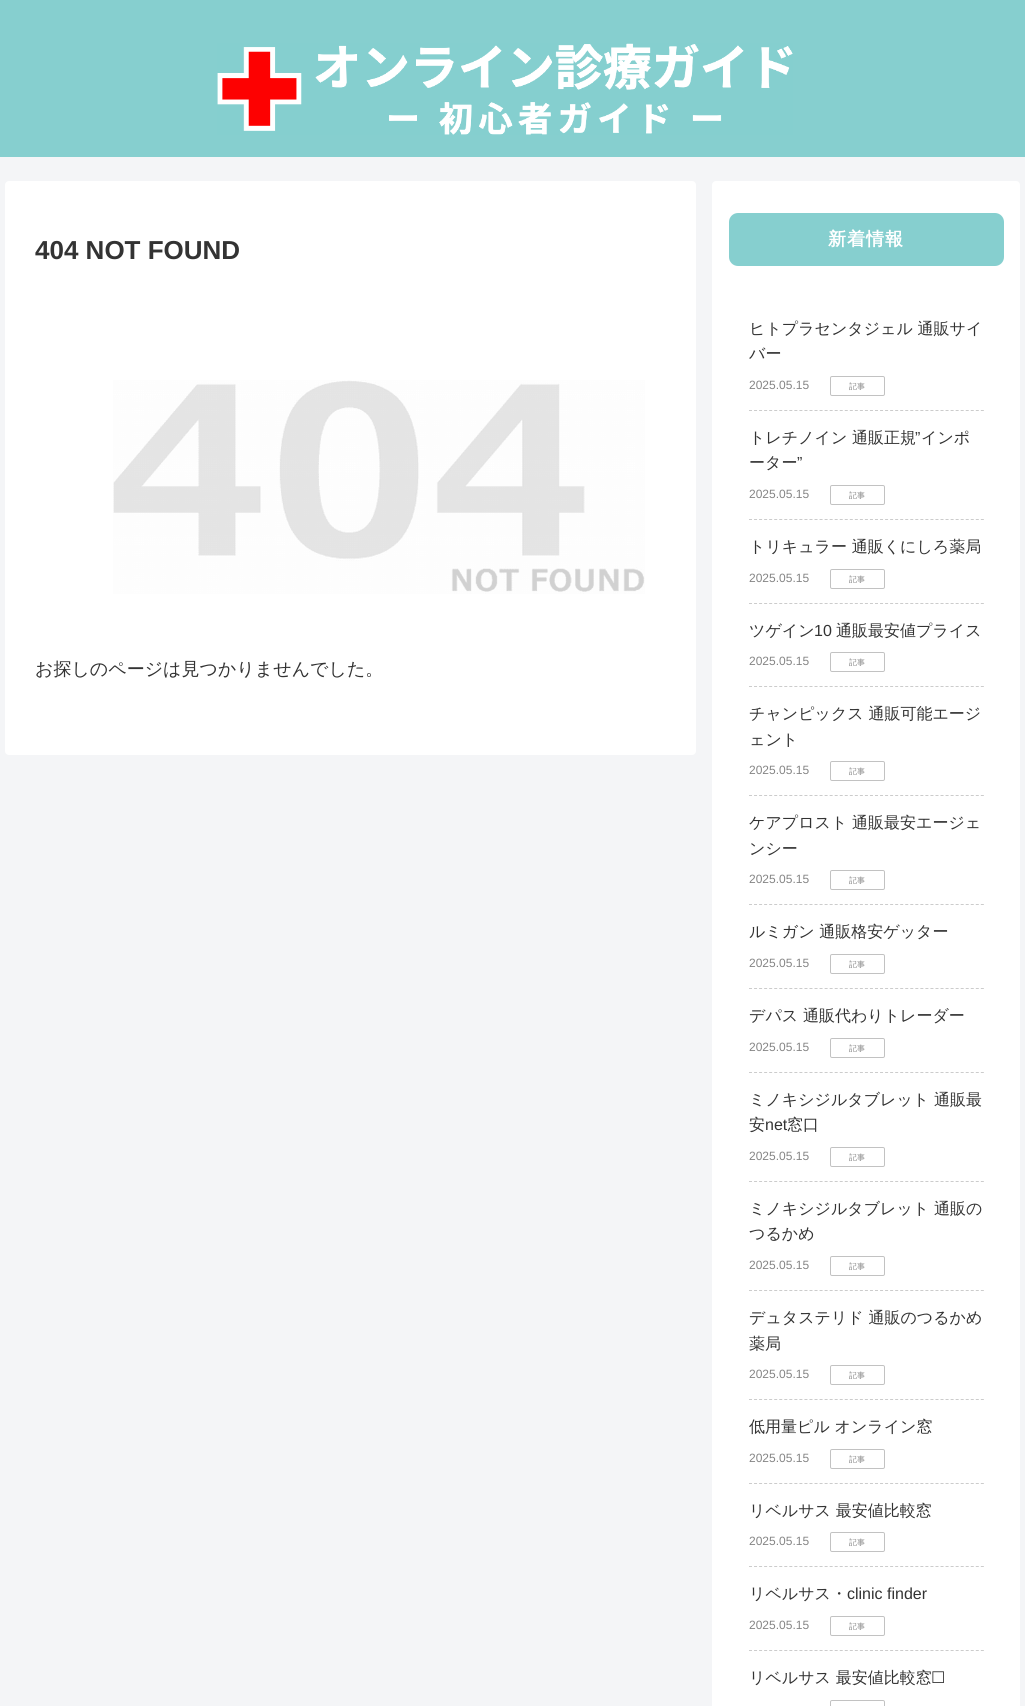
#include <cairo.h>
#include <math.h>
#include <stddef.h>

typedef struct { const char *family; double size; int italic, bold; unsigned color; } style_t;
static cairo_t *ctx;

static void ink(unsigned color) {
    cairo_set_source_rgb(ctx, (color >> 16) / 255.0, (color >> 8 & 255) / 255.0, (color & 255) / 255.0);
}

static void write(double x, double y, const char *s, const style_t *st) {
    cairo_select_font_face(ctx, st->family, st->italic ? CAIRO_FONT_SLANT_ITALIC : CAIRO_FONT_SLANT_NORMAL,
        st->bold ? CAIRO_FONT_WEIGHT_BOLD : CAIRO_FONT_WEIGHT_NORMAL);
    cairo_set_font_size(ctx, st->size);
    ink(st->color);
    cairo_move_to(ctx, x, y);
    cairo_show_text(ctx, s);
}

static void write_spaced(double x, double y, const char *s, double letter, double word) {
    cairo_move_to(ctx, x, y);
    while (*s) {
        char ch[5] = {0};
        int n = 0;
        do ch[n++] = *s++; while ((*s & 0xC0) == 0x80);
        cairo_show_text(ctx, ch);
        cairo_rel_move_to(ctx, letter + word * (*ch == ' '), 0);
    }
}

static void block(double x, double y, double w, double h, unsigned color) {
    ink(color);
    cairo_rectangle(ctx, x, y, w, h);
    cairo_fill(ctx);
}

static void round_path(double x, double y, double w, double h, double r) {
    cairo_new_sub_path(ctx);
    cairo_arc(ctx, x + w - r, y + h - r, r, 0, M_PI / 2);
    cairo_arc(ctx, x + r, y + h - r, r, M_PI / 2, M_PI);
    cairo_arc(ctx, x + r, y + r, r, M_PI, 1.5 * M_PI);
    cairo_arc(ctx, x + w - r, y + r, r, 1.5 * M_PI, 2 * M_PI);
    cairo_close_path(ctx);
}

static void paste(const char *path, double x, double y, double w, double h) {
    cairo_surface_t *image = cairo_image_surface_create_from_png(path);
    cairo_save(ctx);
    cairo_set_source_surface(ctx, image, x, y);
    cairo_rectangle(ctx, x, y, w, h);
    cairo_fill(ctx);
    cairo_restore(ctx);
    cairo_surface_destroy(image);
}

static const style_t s1 = {"Liberation Sans", 26, 0, 1, 0x333333};
static const style_t s2 = {"WenQuanYi Zen Hei Medium", 18, 0, 0, 0x333333};
static const style_t s3 = {"WenQuanYi Zen Hei Medium", 16, 0, 0, 0x333333};
static const style_t s4 = {"Liberation Sans", 12, 0, 0, 0x858585};
static const style_t s5 = {"WenQuanYi Zen Hei Medium", 8, 0, 0, 0x858585};
static const style_t s6 = {"Liberation Sans", 16, 0, 0, 0x333333};
static const style_t s7 = {"DejaVu Sans", 16, 0, 0, 0x333333};

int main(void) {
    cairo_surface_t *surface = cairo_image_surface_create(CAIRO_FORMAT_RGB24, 1025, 1706);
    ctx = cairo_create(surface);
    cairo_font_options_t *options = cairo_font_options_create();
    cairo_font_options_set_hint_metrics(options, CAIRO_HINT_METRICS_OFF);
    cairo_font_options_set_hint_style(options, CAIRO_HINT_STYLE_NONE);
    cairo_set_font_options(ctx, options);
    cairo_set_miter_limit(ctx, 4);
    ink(0xf4f5f7);
    cairo_paint(ctx);
    block(0, 0, 1025, 157, 0x86cfcf);
    paste("pic1.png", 217, 43, 576, 92);
    ink(0xffffff);
    round_path(5, 181, 691, 574, 4);
    cairo_fill(ctx);
    write(35, 259, "404 NOT FOUND", &s1);
    paste("pic2.png", 113, 380, 532, 214);
    write(35, 675, "お探しのページは見つかりませんでした。", &s2);
    ink(0xffffff);
    round_path(712, 181, 308, 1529, 4);
    cairo_fill(ctx);
    ink(0x86cfcf);
    round_path(729, 213, 275, 53, 9);
    cairo_fill(ctx);
    cairo_select_font_face(ctx, "WenQuanYi Zen Hei", CAIRO_FONT_SLANT_NORMAL, CAIRO_FONT_WEIGHT_BOLD);
    ink(0xffffff);
    write_spaced(828, 245, "新着情報", 1, 0);
    cairo_new_path(ctx);
    cairo_move_to(ctx, 749, 410.5);
    cairo_line_to(ctx, 984, 410.5);
    ink(0xcccccc);
    cairo_set_line_width(ctx, 1);
    cairo_set_dash(ctx, (double[]){3, 2.04}, 2, 0);
    cairo_stroke(ctx);
    write(749, 334, "ヒトプラセンタジェル 通販サイ", &s3);
    write(749, 359, "バー", &s3);
    write(749, 389, "2025.05.15", &s4);
    round_path(830.5, 376.5, 54, 19, 1.5);
    ink(0xc2c2c2);
    cairo_set_dash(ctx, NULL, 0, 0);
    cairo_stroke(ctx);
    write(849, 389, "記事", &s5);
    cairo_new_path(ctx);
    cairo_move_to(ctx, 749, 519.5);
    cairo_line_to(ctx, 984, 519.5);
    ink(0xcccccc);
    cairo_set_dash(ctx, (double[]){3, 2.04}, 2, 0);
    cairo_stroke(ctx);
    write(749, 443, "トレチノイン 通販正規", &s3);
    write(915, 443, "”", &s6);
    write(921, 443, "インポ", &s3);
    write(749, 468, "ーター", &s3);
    write(797, 468, "”", &s6);
    write(749, 498, "2025.05.15", &s4);
    round_path(830.5, 485.5, 54, 19, 1.5);
    ink(0xc2c2c2);
    cairo_set_dash(ctx, NULL, 0, 0);
    cairo_stroke(ctx);
    write(849, 498, "記事", &s5);
    cairo_new_path(ctx);
    cairo_move_to(ctx, 749, 603.5);
    cairo_line_to(ctx, 984, 603.5);
    ink(0xcccccc);
    cairo_set_dash(ctx, (double[]){3, 2.04}, 2, 0);
    cairo_stroke(ctx);
    write(749, 552, "トリキュラー 通販くにしろ薬局", &s3);
    write(749, 582, "2025.05.15", &s4);
    round_path(830.5, 569.5, 54, 19, 1.5);
    ink(0xc2c2c2);
    cairo_set_dash(ctx, NULL, 0, 0);
    cairo_stroke(ctx);
    write(849, 582, "記事", &s5);
    cairo_new_path(ctx);
    cairo_move_to(ctx, 749, 686.5);
    cairo_line_to(ctx, 984, 686.5);
    ink(0xcccccc);
    cairo_set_dash(ctx, (double[]){3, 2.04}, 2, 0);
    cairo_stroke(ctx);
    write(749, 636, "ツゲイン", &s3);
    write(814, 636, "10", &s6);
    write(836, 636, "通販最安値プライス", &s3);
    write(749, 665, "2025.05.15", &s4);
    round_path(830.5, 652.5, 54, 19, 1.5);
    ink(0xc2c2c2);
    cairo_set_dash(ctx, NULL, 0, 0);
    cairo_stroke(ctx);
    write(849, 665, "記事", &s5);
    cairo_new_path(ctx);
    cairo_move_to(ctx, 749, 795.5);
    cairo_line_to(ctx, 984, 795.5);
    ink(0xcccccc);
    cairo_set_dash(ctx, (double[]){3, 2.04}, 2, 0);
    cairo_stroke(ctx);
    write(749, 719, "チャンピックス 通販可能エージ", &s3);
    write(749, 745, "ェント", &s3);
    write(749, 774, "2025.05.15", &s4);
    round_path(830.5, 761.5, 54, 19, 1.5);
    ink(0xc2c2c2);
    cairo_set_dash(ctx, NULL, 0, 0);
    cairo_stroke(ctx);
    write(849, 774, "記事", &s5);
    cairo_new_path(ctx);
    cairo_move_to(ctx, 749, 904.5);
    cairo_line_to(ctx, 984, 904.5);
    ink(0xcccccc);
    cairo_set_dash(ctx, (double[]){3, 2.04}, 2, 0);
    cairo_stroke(ctx);
    write(749, 828, "ケアプロスト 通販最安エージェ", &s3);
    write(749, 854, "ンシー", &s3);
    write(749, 883, "2025.05.15", &s4);
    round_path(830.5, 870.5, 54, 19, 1.5);
    ink(0xc2c2c2);
    cairo_set_dash(ctx, NULL, 0, 0);
    cairo_stroke(ctx);
    write(849, 883, "記事", &s5);
    cairo_new_path(ctx);
    cairo_move_to(ctx, 749, 988.5);
    cairo_line_to(ctx, 984, 988.5);
    ink(0xcccccc);
    cairo_set_dash(ctx, (double[]){3, 2.04}, 2, 0);
    cairo_stroke(ctx);
    write(749, 937, "ルミガン 通販格安ゲッター", &s3);
    write(749, 967, "2025.05.15", &s4);
    round_path(830.5, 954.5, 54, 19, 1.5);
    ink(0xc2c2c2);
    cairo_set_dash(ctx, NULL, 0, 0);
    cairo_stroke(ctx);
    write(849, 967, "記事", &s5);
    cairo_new_path(ctx);
    cairo_move_to(ctx, 749, 1072.5);
    cairo_line_to(ctx, 984, 1072.5);
    ink(0xcccccc);
    cairo_set_dash(ctx, (double[]){3, 2.04}, 2, 0);
    cairo_stroke(ctx);
    write(749, 1021, "デパス 通販代わりトレーダー", &s3);
    write(749, 1051, "2025.05.15", &s4);
    round_path(830.5, 1038.5, 54, 19, 1.5);
    ink(0xc2c2c2);
    cairo_set_dash(ctx, NULL, 0, 0);
    cairo_stroke(ctx);
    write(849, 1051, "記事", &s5);
    cairo_new_path(ctx);
    cairo_move_to(ctx, 749, 1181.5);
    cairo_line_to(ctx, 984, 1181.5);
    ink(0xcccccc);
    cairo_set_dash(ctx, (double[]){3, 2.04}, 2, 0);
    cairo_stroke(ctx);
    write(749, 1105, "ミノキシジルタブレット 通販最", &s3);
    write(749, 1130, "安", &s3);
    write(765, 1130, "net", &s6);
    write(787, 1130, "窓口", &s3);
    write(749, 1160, "2025.05.15", &s4);
    round_path(830.5, 1147.5, 54, 19, 1.5);
    ink(0xc2c2c2);
    cairo_set_dash(ctx, NULL, 0, 0);
    cairo_stroke(ctx);
    write(849, 1160, "記事", &s5);
    cairo_new_path(ctx);
    cairo_move_to(ctx, 749, 1290.5);
    cairo_line_to(ctx, 984, 1290.5);
    ink(0xcccccc);
    cairo_set_dash(ctx, (double[]){3, 2.04}, 2, 0);
    cairo_stroke(ctx);
    write(749, 1214, "ミノキシジルタブレット 通販の", &s3);
    write(749, 1239, "つるかめ", &s3);
    write(749, 1269, "2025.05.15", &s4);
    round_path(830.5, 1256.5, 54, 19, 1.5);
    ink(0xc2c2c2);
    cairo_set_dash(ctx, NULL, 0, 0);
    cairo_stroke(ctx);
    write(849, 1269, "記事", &s5);
    cairo_new_path(ctx);
    cairo_move_to(ctx, 749, 1399.5);
    cairo_line_to(ctx, 984, 1399.5);
    ink(0xcccccc);
    cairo_set_dash(ctx, (double[]){3, 2.04}, 2, 0);
    cairo_stroke(ctx);
    write(749, 1323, "デュタステリド 通販のつるかめ", &s3);
    write(749, 1349, "薬局", &s3);
    write(749, 1378, "2025.05.15", &s4);
    round_path(830.5, 1365.5, 54, 19, 1.5);
    ink(0xc2c2c2);
    cairo_set_dash(ctx, NULL, 0, 0);
    cairo_stroke(ctx);
    write(849, 1378, "記事", &s5);
    cairo_new_path(ctx);
    cairo_move_to(ctx, 749, 1483.5);
    cairo_line_to(ctx, 984, 1483.5);
    ink(0xcccccc);
    cairo_set_dash(ctx, (double[]){3, 2.04}, 2, 0);
    cairo_stroke(ctx);
    write(749, 1432, "低用量ピル オンライン窓", &s3);
    write(749, 1462, "2025.05.15", &s4);
    round_path(830.5, 1449.5, 54, 19, 1.5);
    ink(0xc2c2c2);
    cairo_set_dash(ctx, NULL, 0, 0);
    cairo_stroke(ctx);
    write(849, 1462, "記事", &s5);
    cairo_new_path(ctx);
    cairo_move_to(ctx, 749, 1566.5);
    cairo_line_to(ctx, 984, 1566.5);
    ink(0xcccccc);
    cairo_set_dash(ctx, (double[]){3, 2.04}, 2, 0);
    cairo_stroke(ctx);
    write(749, 1516, "リベルサス 最安値比較窓", &s3);
    write(749, 1545, "2025.05.15", &s4);
    round_path(830.5, 1532.5, 54, 19, 1.5);
    ink(0xc2c2c2);
    cairo_set_dash(ctx, NULL, 0, 0);
    cairo_stroke(ctx);
    write(849, 1545, "記事", &s5);
    cairo_new_path(ctx);
    cairo_move_to(ctx, 749, 1650.5);
    cairo_line_to(ctx, 984, 1650.5);
    ink(0xcccccc);
    cairo_set_dash(ctx, (double[]){3, 2.04}, 2, 0);
    cairo_stroke(ctx);
    write(749, 1599, "リベルサス・", &s3);
    write(847, 1599, "clinic finder", &s6);
    write(749, 1629, "2025.05.15", &s4);
    round_path(830.5, 1616.5, 54, 19, 1.5);
    ink(0xc2c2c2);
    cairo_set_dash(ctx, NULL, 0, 0);
    cairo_stroke(ctx);
    write(849, 1629, "記事", &s5);
    write(749, 1683, "リベルサス 最安値比較窓", &s3);
    write(931, 1683, "☐", &s7);
    round_path(830.5, 1700.5, 54, 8, 1.5);
    ink(0xc2c2c2);
    cairo_stroke(ctx);
    cairo_surface_write_to_png(surface, "screenshot.png");
    cairo_font_options_destroy(options);
    cairo_destroy(ctx);
    cairo_surface_destroy(surface);
    return 0;
}
